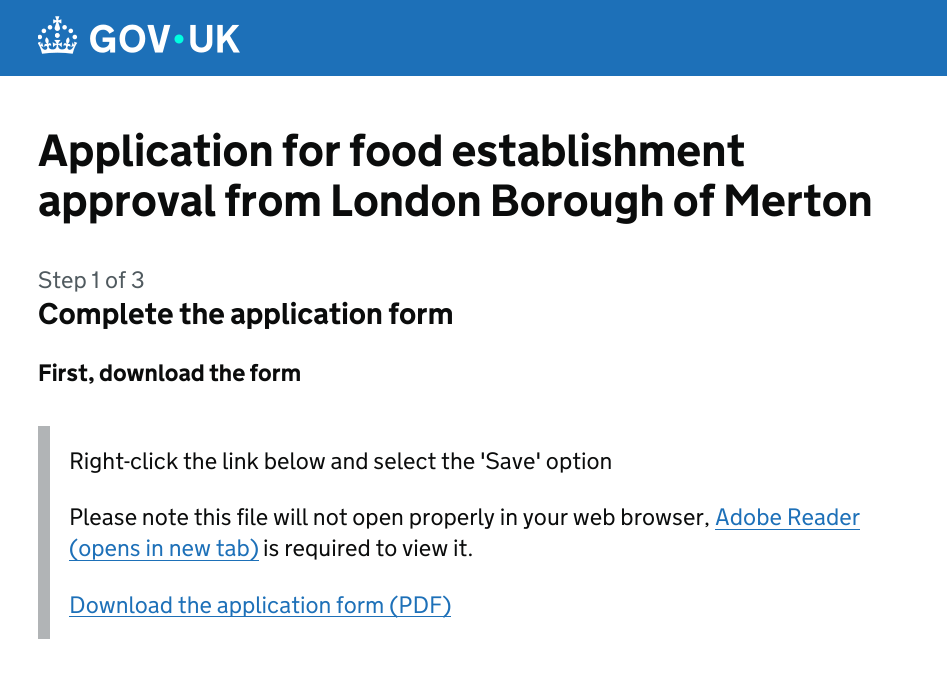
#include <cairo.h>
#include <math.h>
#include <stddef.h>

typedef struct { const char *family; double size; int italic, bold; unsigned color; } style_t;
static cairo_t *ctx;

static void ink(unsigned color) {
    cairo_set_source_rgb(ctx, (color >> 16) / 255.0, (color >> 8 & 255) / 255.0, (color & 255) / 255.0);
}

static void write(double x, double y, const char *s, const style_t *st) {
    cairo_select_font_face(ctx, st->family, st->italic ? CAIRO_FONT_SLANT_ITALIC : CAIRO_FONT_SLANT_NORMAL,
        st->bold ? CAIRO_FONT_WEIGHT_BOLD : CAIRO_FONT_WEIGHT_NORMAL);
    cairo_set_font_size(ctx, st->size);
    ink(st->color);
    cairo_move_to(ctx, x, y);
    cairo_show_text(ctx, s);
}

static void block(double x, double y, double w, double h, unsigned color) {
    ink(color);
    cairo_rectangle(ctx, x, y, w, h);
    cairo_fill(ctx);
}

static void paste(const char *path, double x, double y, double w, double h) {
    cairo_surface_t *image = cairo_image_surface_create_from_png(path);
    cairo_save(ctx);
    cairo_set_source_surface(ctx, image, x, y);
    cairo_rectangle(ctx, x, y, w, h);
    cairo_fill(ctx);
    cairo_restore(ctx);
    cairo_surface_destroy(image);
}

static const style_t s1 = {"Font", 45, 0, 1, 0x0b0c0c};
static const style_t s2 = {"Font Light", 23.75, 0, 0, 0x505a5f};
static const style_t s3 = {"Font", 30, 0, 1, 0x0b0c0c};
static const style_t s4 = {"Font", 23.75, 0, 1, 0x0b0c0c};
static const style_t s5 = {"Font Light", 23.75, 0, 0, 0x0b0c0c};
static const style_t s6 = {"Font Light", 23.75, 0, 0, 0x1d70b8};

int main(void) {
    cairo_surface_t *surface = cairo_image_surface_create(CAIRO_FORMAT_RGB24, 947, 679);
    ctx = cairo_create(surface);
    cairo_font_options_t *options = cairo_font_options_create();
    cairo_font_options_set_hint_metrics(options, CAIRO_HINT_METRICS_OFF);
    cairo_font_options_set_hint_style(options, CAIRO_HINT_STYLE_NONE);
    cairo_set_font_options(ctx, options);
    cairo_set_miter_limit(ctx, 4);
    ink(0xffffff);
    cairo_paint(ctx);
    block(0, 0, 947, 76, 0x1d70b8);
    paste("pic1.png", 38, 16, 202, 38);
    write(38, 166, "Application for food establishment", &s1);
    write(38, 216, "approval from London Borough of Merton", &s1);
    write(38, 288, "Step 1 of 3", &s2);
    write(38, 324, "Complete the application form", &s3);
    write(38, 381, "First, download the form", &s4);
    block(38, 426, 12, 213, 0xb1b4b6);
    write(69, 469, "Right-click the link below and select the 'Save' option", &s5);
    write(69, 525, "Please note this file will not open properly in your web browser,", &s5);
    write(715, 525, "Adobe Reader", &s6);
    block(715, 529, 145, 1, 0x1d70b8);
    block(69, 560, 190, 1, 0x1d70b8);
    write(69, 556, "(opens in new tab)", &s6);
    write(263, 556, "is required to view it.", &s5);
    block(69, 616, 382, 1, 0x1d70b8);
    write(69, 613, "Download the application form (PDF)", &s6);
    cairo_surface_write_to_png(surface, "screenshot.png");
    cairo_font_options_destroy(options);
    cairo_destroy(ctx);
    cairo_surface_destroy(surface);
    return 0;
}
